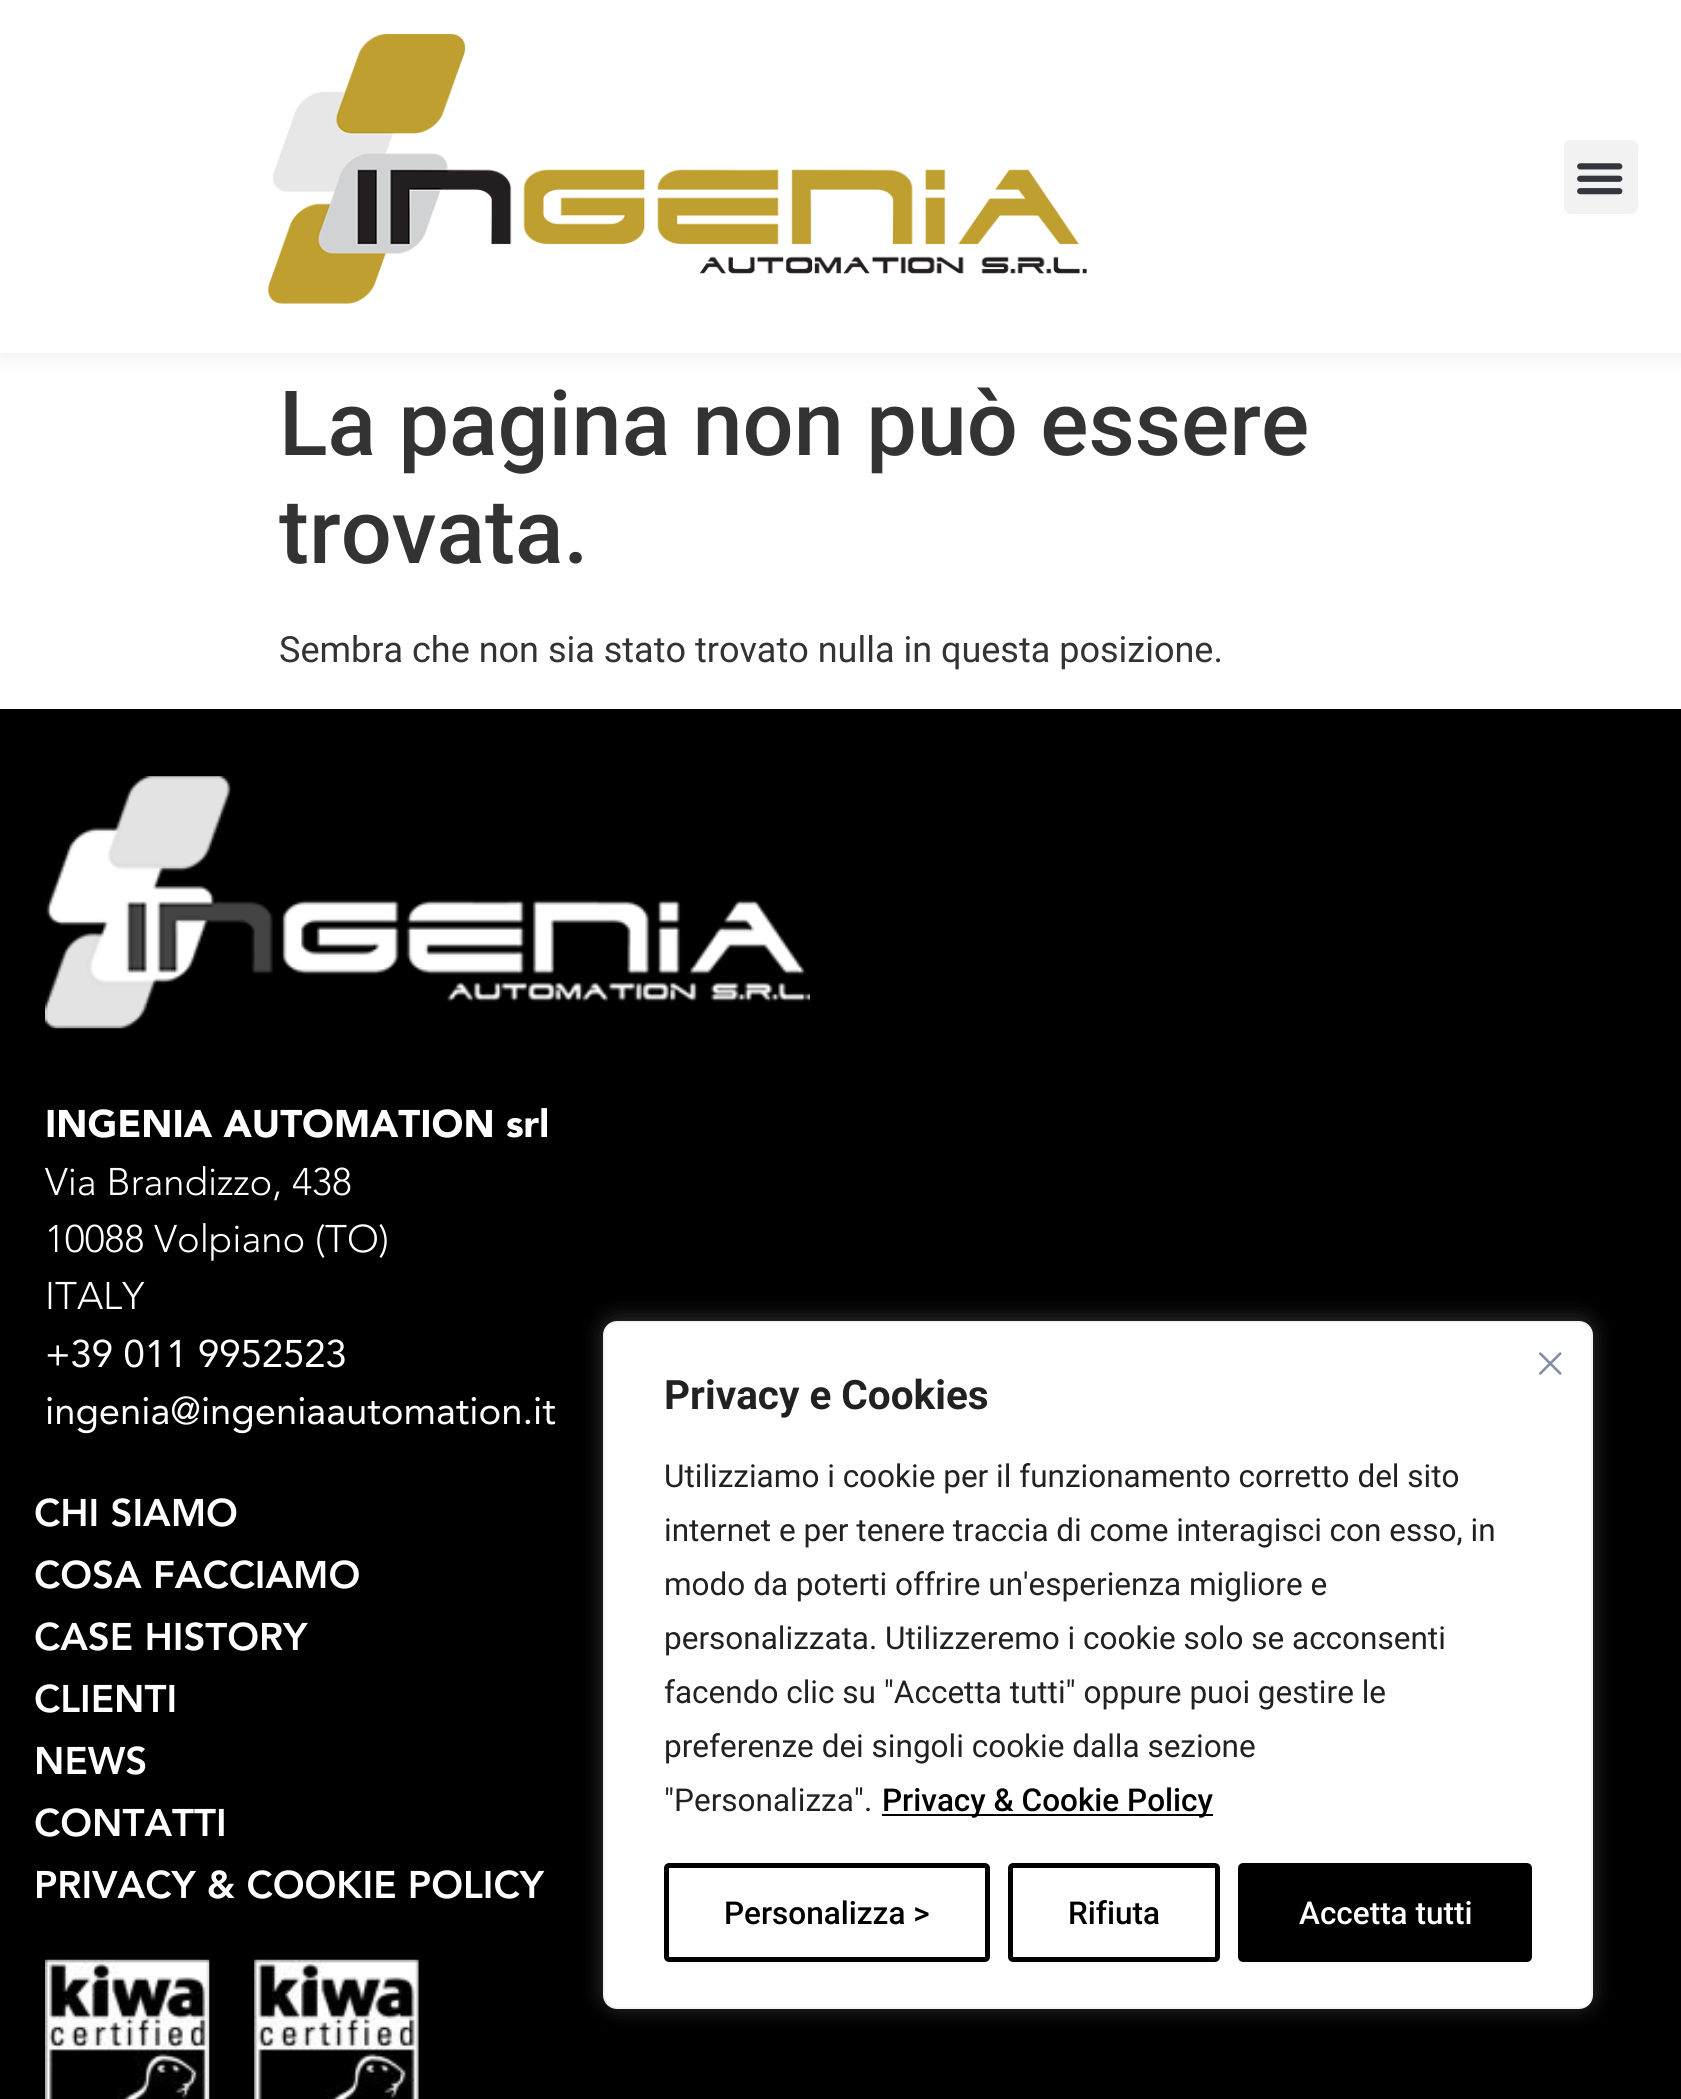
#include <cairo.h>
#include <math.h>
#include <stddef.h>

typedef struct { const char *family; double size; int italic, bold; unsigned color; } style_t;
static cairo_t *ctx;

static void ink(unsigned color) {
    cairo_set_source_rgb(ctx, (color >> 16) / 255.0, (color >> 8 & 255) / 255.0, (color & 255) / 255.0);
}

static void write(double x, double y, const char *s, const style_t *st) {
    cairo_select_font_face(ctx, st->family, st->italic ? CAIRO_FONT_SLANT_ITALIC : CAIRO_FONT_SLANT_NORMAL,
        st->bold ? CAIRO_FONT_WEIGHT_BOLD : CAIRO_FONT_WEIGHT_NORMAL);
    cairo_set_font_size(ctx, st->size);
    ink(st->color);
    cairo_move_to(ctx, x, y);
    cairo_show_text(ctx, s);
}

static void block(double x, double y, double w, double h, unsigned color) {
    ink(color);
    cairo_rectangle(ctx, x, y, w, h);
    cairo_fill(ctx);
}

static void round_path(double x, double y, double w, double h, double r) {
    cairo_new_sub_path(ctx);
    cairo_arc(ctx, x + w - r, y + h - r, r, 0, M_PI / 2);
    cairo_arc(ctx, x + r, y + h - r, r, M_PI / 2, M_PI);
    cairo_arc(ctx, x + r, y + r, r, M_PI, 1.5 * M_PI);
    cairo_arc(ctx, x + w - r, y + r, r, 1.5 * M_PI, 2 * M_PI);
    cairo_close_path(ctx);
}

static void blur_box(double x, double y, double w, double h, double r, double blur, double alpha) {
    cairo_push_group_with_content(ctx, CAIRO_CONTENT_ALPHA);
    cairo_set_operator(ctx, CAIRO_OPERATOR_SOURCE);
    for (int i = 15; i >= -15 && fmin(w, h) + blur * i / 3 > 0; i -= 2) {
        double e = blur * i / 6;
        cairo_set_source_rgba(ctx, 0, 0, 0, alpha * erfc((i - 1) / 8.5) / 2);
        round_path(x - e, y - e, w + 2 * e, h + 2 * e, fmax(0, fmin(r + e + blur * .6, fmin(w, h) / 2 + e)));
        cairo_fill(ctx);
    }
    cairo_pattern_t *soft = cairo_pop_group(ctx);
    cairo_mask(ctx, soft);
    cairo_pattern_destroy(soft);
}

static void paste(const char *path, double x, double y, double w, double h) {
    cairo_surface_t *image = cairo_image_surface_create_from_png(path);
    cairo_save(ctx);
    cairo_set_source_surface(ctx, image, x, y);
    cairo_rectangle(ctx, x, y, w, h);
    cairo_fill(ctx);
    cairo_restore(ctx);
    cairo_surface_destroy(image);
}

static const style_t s1 = {"Roboto Medium", 90, 0, 0, 0x333333};
static const style_t s2 = {"Roboto", 36, 0, 0, 0x333333};
static const style_t s3 = {"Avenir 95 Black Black", 38.25, 0, 0, 0xffffff};
static const style_t s4 = {"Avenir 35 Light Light", 38.25, 0, 0, 0xffffff};
static const style_t s5 = {"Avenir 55", 38.25, 0, 0, 0xffffff};
static const style_t s6 = {"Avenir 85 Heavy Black", 38.25, 0, 0, 0xffffff};
static const style_t s7 = {"Roboto", 40.5, 0, 1, 0x212121};
static const style_t s8 = {"Roboto", 31.5, 0, 0, 0x212121};
static const style_t s9 = {"Roboto Medium", 31.5, 0, 0, 0x000000};
static const style_t s10 = {"Roboto Medium", 31.5, 0, 0, 0xffffff};

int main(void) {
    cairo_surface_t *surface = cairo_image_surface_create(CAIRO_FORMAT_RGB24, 1681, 2099);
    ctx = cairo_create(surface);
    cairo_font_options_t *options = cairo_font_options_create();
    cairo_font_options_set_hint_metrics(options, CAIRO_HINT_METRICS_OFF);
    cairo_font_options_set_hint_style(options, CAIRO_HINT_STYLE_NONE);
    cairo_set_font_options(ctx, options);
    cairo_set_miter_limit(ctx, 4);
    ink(0xffffff);
    cairo_paint(ctx);
    cairo_save(ctx);
    cairo_rectangle(ctx, 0, 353, 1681, 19);
    cairo_clip(ctx);
    ink(0xcfcfcf);
    blur_box(0, 0, 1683, 353, 0, 11, 0.5);
    cairo_restore(ctx);
    paste("pic1.png", 268, 33, 819, 271);
    ink(0xf2f2f2);
    round_path(1564, 140, 74, 74, 7);
    cairo_fill(ctx);
    paste("pic2.png", 1577, 163, 46, 32);
    write(279, 455, "La pagina non può essere", &s1);
    write(279, 563, "trovata.", &s1);
    write(279, 662, "Sembra che non sia stato trovato nulla in questa posizione.", &s2);
    block(0, 709, 1681, 1390, 0x000000);
    paste("pic3.png", 45, 776, 765, 253);
    write(45, 1137, "INGENIA AUTOMATION srl", &s3);
    write(45, 1195, "Via Brandizzo, 438", &s4);
    write(45, 1252, "10088 Volpiano (TO)", &s4);
    write(45, 1309, "ITALY", &s4);
    write(45, 1367, "+39 011 9952523", &s5);
    write(45, 1424, "ingenia@ingeniaautomation.it", &s5);
    write(34, 1526, "CHI SIAMO", &s6);
    write(34, 1588, "COSA FACCIAMO", &s6);
    write(34, 1650, "CASE HISTORY", &s6);
    write(34, 1712, "CLIENTI", &s6);
    write(34, 1774, "NEWS", &s6);
    write(34, 1836, "CONTATTI", &s6);
    write(34, 1898, "PRIVACY & COOKIE POLICY", &s6);
    paste("pic4.png", 45, 1959, 165, 140);
    paste("pic5.png", 254, 1959, 165, 140);
    ink(0xacabab);
    blur_box(603, 1319, 990, 688, 14, 11, 0.3);
    ink(0xffffff);
    round_path(604, 1322, 988, 686, 13);
    cairo_fill_preserve(ctx);
    ink(0xf4f4f4);
    cairo_stroke(ctx);
    paste("pic6.png", 1539, 1352, 23, 23);
    write(664, 1409, "Privacy e Cookies", &s7);
    write(664, 1487, "Utilizziamo i cookie per il funzionamento corretto del sito", &s8);
    write(664, 1541, "internet e per tenere traccia di come interagisci con esso, in", &s8);
    write(664, 1595, "modo da poterti offrire un'esperienza migliore e", &s8);
    write(664, 1649, "personalizzata. Utilizzeremo i cookie solo se acconsenti", &s8);
    write(664, 1703, "facendo clic su \"Accetta tutti\" oppure puoi gestire le", &s8);
    write(664, 1757, "preferenze dei singoli cookie dalla sezione", &s8);
    write(664, 1811, "\"Personalizza\".", &s8);
    block(882, 1814, 331, 2, 0x000000);
    write(882, 1811, "Privacy & Cookie Policy", &s9);
    round_path(666.5, 1865.5, 321, 94, 2.5);
    cairo_set_line_width(ctx, 5);
    cairo_stroke(ctx);
    write(724, 1924, "Personalizza >", &s9);
    round_path(1010.5, 1865.5, 207, 94, 2.5);
    cairo_stroke(ctx);
    write(1068, 1924, "Rifiuta", &s9);
    round_path(1240.5, 1865.5, 289, 94, 2.5);
    cairo_fill_preserve(ctx);
    cairo_stroke(ctx);
    write(1299, 1924, "Accetta tutti", &s10);
    cairo_surface_write_to_png(surface, "screenshot.png");
    cairo_font_options_destroy(options);
    cairo_destroy(ctx);
    cairo_surface_destroy(surface);
    return 0;
}
